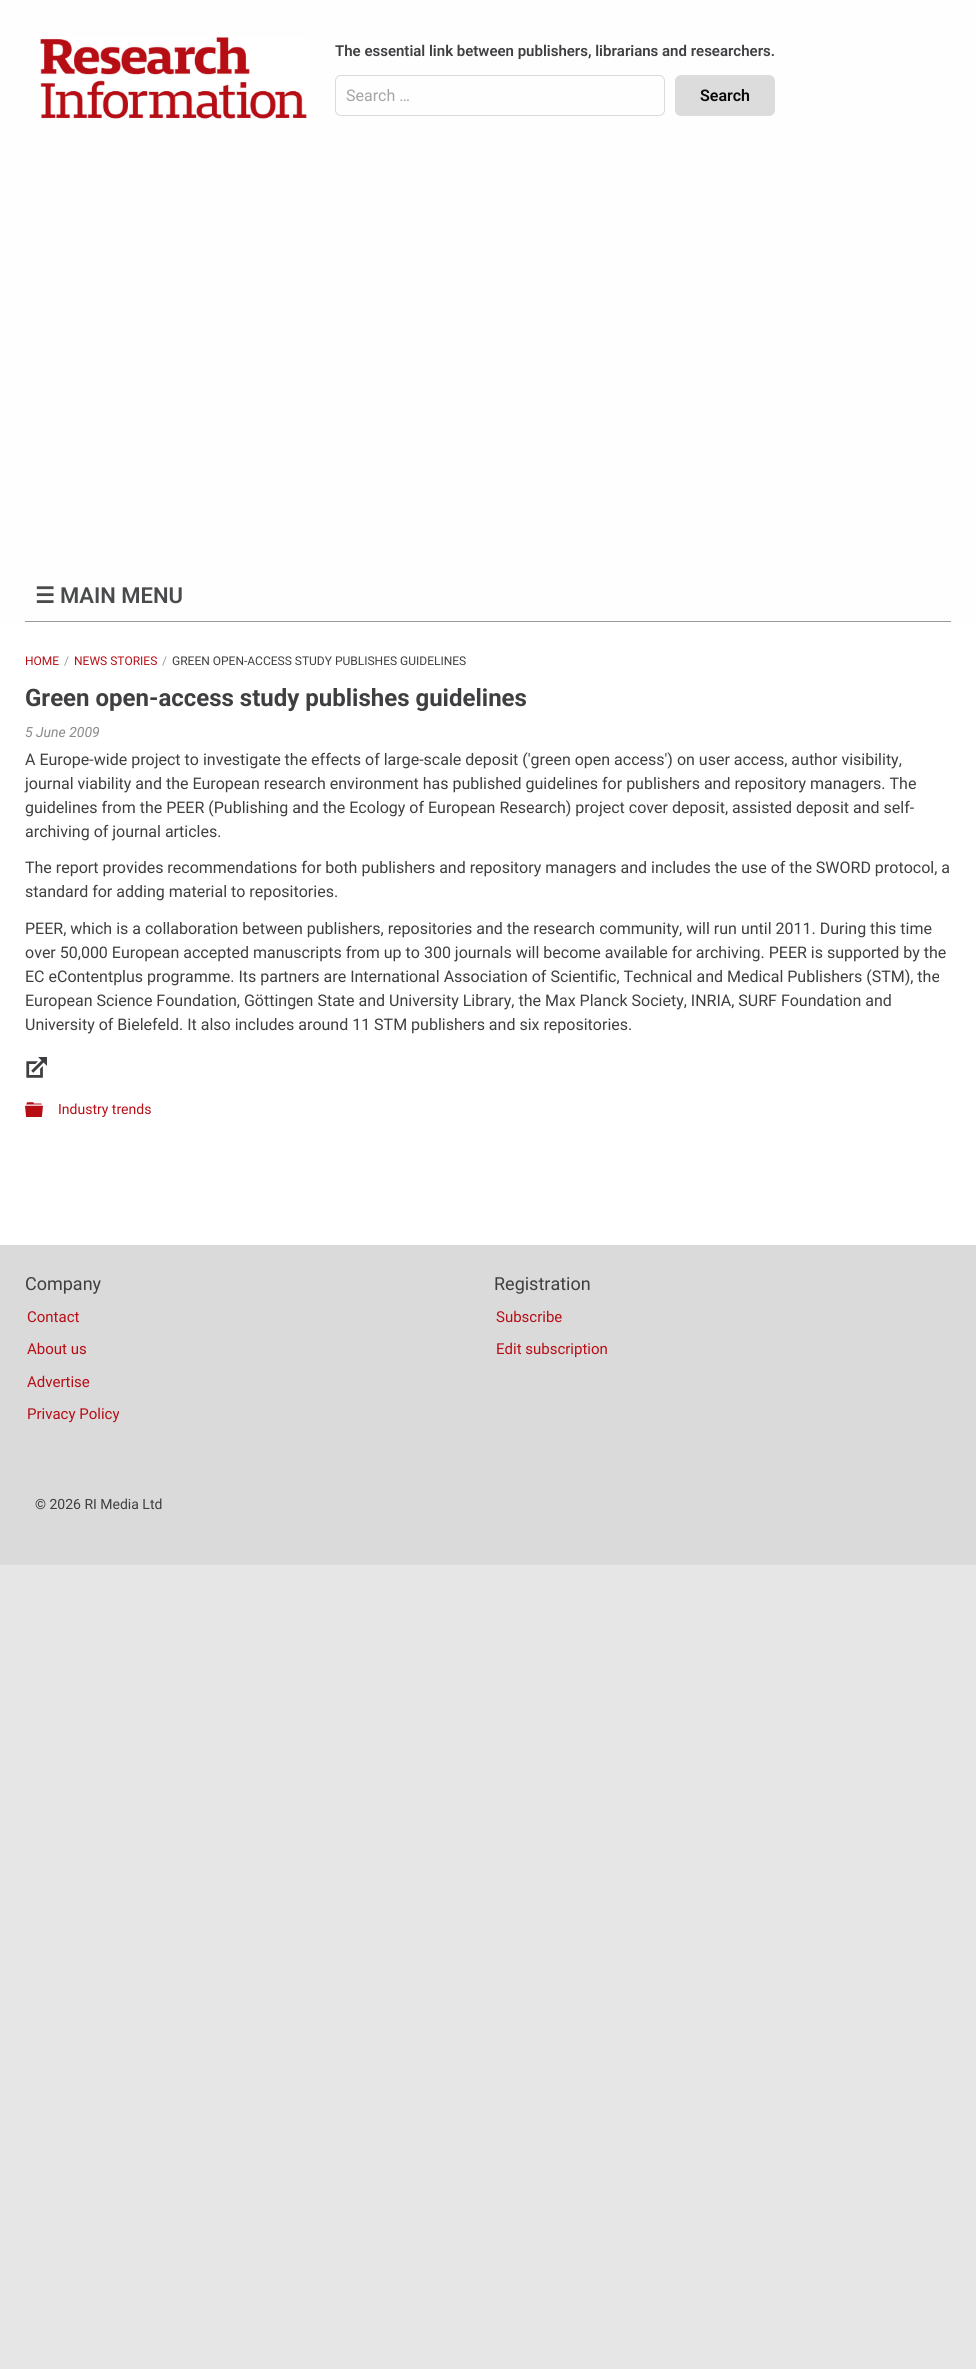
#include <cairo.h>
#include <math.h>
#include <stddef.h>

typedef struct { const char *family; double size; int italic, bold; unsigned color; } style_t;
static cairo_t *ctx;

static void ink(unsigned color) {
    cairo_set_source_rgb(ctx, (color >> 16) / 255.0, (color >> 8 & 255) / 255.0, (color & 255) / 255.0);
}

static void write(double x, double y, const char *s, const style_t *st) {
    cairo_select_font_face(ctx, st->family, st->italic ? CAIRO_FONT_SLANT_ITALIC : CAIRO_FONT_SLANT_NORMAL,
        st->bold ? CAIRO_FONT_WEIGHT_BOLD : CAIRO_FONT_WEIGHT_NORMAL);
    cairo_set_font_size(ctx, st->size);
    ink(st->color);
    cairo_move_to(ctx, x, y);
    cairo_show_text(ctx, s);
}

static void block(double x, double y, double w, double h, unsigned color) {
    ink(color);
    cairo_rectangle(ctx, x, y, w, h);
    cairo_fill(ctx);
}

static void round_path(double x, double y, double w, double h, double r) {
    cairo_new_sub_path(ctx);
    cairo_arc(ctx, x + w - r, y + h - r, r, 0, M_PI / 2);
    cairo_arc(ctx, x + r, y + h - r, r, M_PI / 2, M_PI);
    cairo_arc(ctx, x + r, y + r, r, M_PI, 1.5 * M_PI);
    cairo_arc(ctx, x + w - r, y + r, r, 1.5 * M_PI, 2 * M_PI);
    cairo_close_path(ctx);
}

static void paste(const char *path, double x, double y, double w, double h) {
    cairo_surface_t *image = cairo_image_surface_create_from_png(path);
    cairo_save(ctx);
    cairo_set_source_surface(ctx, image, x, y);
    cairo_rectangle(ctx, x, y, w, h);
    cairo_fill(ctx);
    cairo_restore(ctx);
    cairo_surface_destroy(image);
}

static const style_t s1 = {"Roboto SemiBold", 15, 0, 0, 0x3f3f42};
static const style_t s2 = {"Roboto", 16, 0, 0, 0xa4a5a5};
static const style_t s3 = {"Roboto SemiBold", 16, 0, 0, 0x0a0a0a};
static const style_t s4 = {"DejaVu Sans", 22, 0, 1, 0x494b4c};
static const style_t s5 = {"Roboto SemiBold", 22, 0, 0, 0x494b4c};
static const style_t s6 = {"Roboto", 12, 0, 0, 0xb70e16};
static const style_t s7 = {"Roboto", 12, 0, 0, 0x999999};
static const style_t s8 = {"Roboto", 12, 0, 0, 0x3f3f42};
static const style_t s9 = {"Roboto", 24, 0, 1, 0x3f3f42};
static const style_t s10 = {"Roboto", 14, 1, 0, 0x8a8a8a};
static const style_t s11 = {"Roboto", 16, 0, 0, 0x3f3f42};
static const style_t s12 = {"Roboto", 14, 0, 0, 0xb70e16};
static const style_t s13 = {"Roboto", 18, 0, 0, 0x3f3f42};
static const style_t s14 = {"Roboto", 15, 0, 0, 0xb70e16};
static const style_t s15 = {"Roboto", 14, 0, 0, 0x3f3f42};

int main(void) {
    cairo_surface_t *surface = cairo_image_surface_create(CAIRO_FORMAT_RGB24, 976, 2369);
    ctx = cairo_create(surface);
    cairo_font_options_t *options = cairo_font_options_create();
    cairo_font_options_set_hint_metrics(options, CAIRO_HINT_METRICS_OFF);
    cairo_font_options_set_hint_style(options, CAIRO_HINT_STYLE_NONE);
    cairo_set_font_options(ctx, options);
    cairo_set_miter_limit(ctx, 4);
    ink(0xe6e6e6);
    cairo_paint(ctx);
    block(0, 0, 976, 622, 0xfefefe);
    paste("pic1.png", 39, 37, 269, 84);
    write(335, 56, "The essential link between publishers, librarians and researchers.", &s1);
    round_path(335.5, 75.5, 329, 40, 5.5);
    ink(0xdadada);
    cairo_set_line_width(ctx, 1);
    cairo_stroke(ctx);
    write(346, 101, "Search …", &s2);
    ink(0xdcdcdc);
    round_path(675, 75, 100, 41, 6);
    cairo_fill(ctx);
    write(700, 101, "Search", &s3);
    block(25, 621, 926, 1, 0x999999);
    write(35, 603, "☰", &s4);
    write(60, 603, "MAIN MENU", &s5);
    block(0, 622, 976, 623, 0xffffff);
    write(25, 665, "HOME", &s6);
    write(64, 665, "/", &s7);
    write(74, 665, "NEWS STORIES", &s6);
    write(162, 665, "/", &s7);
    write(172, 665, "GREEN OPEN-ACCESS STUDY PUBLISHES GUIDELINES", &s8);
    write(25, 706, "Green open-access study publishes guidelines", &s9);
    write(25, 737, "5 June 2009", &s10);
    write(25, 765, "A Europe-wide project to investigate the effects of large-scale deposit ('green open access') on user access, author visibility,", &s11);
    write(25, 789, "journal viability and the European research environment has published guidelines for publishers and repository managers. The", &s11);
    write(25, 813, "guidelines from the PEER (Publishing and the Ecology of European Research) project cover deposit, assisted deposit and self-", &s11);
    write(25, 837, "archiving of journal articles.", &s11);
    write(25, 873, "The report provides recommendations for both publishers and repository managers and includes the use of the SWORD protocol, a", &s11);
    write(25, 897, "standard for adding material to repositories.", &s11);
    write(25, 934, "PEER, which is a collaboration between publishers, repositories and the research community, will run until 2011. During this time", &s11);
    write(25, 958, "over 50,000 European accepted manuscripts from up to 300 journals will become available for archiving. PEER is supported by the", &s11);
    write(25, 982, "EC eContentplus programme. Its partners are International Association of Scientific, Technical and Medical Publishers (STM), the", &s11);
    write(25, 1006, "European Science Foundation, Göttingen State and University Library, the Max Planck Society, INRIA, SURF Foundation and", &s11);
    write(25, 1030, "University of Bielefeld. It also includes around 11 STM publishers and six repositories.", &s11);
    paste("pic2.png", 26, 1057, 21, 21);
    paste("pic3.png", 25, 1102, 18, 15);
    write(58, 1114, "Industry trends", &s12);
    block(0, 1245, 976, 320, 0xdadada);
    write(25, 1290, "Company", &s13);
    write(27, 1322, "Contact", &s14);
    write(27, 1354, "About us", &s14);
    write(27, 1387, "Advertise", &s14);
    write(27, 1419, "Privacy Policy", &s14);
    write(494, 1290, "Registration", &s13);
    write(496, 1322, "Subscribe", &s14);
    write(496, 1354, "Edit subscription", &s14);
    write(35, 1509, "© 2026 RI Media Ltd", &s15);
    cairo_surface_write_to_png(surface, "screenshot.png");
    cairo_font_options_destroy(options);
    cairo_destroy(ctx);
    cairo_surface_destroy(surface);
    return 0;
}
